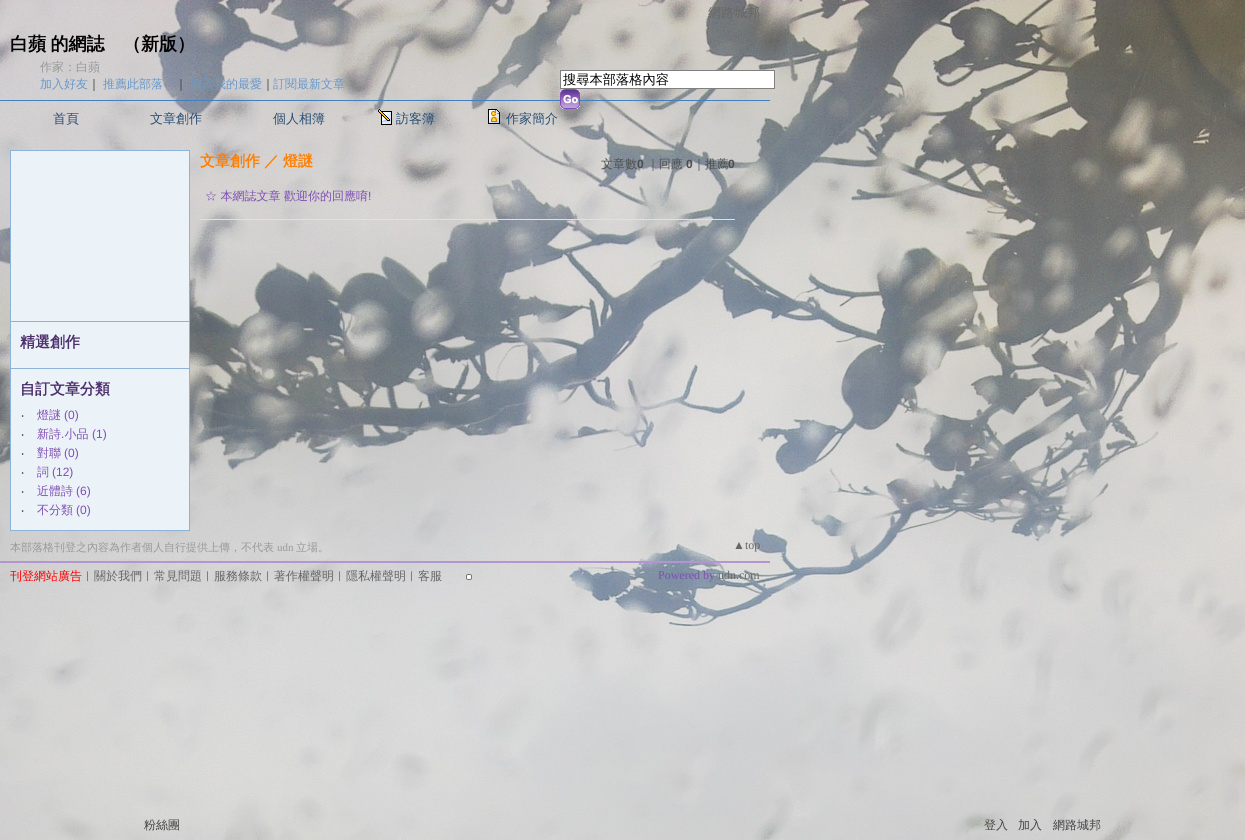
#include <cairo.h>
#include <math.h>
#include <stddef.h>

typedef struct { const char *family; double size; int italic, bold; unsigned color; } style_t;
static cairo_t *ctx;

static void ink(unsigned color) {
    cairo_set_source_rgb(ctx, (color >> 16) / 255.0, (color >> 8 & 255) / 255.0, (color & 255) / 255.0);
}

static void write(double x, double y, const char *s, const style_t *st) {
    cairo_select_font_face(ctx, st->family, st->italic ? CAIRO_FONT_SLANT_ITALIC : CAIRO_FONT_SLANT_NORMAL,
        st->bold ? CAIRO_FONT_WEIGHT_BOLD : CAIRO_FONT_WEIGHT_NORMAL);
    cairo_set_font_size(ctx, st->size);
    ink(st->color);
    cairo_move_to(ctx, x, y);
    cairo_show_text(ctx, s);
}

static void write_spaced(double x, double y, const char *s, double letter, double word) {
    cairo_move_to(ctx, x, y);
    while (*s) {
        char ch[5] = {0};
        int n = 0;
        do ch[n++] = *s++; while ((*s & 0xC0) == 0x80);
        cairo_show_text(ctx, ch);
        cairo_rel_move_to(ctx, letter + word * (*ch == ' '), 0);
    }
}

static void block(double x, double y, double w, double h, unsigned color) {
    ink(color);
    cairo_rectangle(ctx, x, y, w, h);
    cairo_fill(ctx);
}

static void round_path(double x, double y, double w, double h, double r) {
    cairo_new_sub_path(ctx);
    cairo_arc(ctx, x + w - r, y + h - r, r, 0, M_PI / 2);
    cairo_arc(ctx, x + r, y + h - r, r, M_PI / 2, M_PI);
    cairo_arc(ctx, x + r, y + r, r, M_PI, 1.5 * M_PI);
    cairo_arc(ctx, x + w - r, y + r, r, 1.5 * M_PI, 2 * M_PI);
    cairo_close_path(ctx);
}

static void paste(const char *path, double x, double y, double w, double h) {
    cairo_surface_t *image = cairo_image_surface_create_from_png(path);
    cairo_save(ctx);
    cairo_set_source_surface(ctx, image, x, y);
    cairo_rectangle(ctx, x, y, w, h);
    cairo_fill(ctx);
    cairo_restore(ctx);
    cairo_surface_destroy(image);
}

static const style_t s1 = {"WenQuanYi Zen Hei Medium", 13, 0, 0, 0x666666};
static const style_t s2 = {"WenQuanYi Zen Hei", 18, 0, 1, 0x000000};
static const style_t s3 = {"WenQuanYi Zen Hei Medium", 12, 0, 0, 0x999999};
static const style_t s4 = {"WenQuanYi Zen Hei Medium", 12, 0, 0, 0x6698cc};
static const style_t s5 = {"WenQuanYi Zen Hei Medium", 12, 0, 0, 0x333333};
static const style_t s6 = {"WenQuanYi Zen Hei Medium", 13.25, 0, 0, 0x000000};
static const style_t s7 = {"WenQuanYi Zen Hei Medium", 13, 0, 0, 0x274d74};
static const style_t s8 = {"WenQuanYi Zen Hei", 15, 0, 1, 0xff7e00};
static const style_t s9 = {"WenQuanYi Zen Hei Medium", 12, 0, 0, 0x4d4d4d};
static const style_t s10 = {"Liberation Sans", 12, 0, 1, 0x4d4d4d};
static const style_t s11 = {"WenQuanYi Zen Hei Medium", 12, 0, 0, 0x7f4db3};
static const style_t s12 = {"Liberation Sans", 12, 0, 0, 0x7f4db3};
static const style_t s13 = {"WenQuanYi Zen Hei", 15, 0, 1, 0x4d2f6c};
static const style_t s14 = {"Noto Sans", 12, 0, 0, 0x333333};
static const style_t s15 = {"WenQuanYi Zen Hei Medium", 11, 0, 0, 0x999999};
static const style_t s16 = {"Liberation Serif", 11, 0, 0, 0x999999};
static const style_t s17 = {"Liberation Serif", 12, 0, 0, 0x666666};
static const style_t s18 = {"WenQuanYi Zen Hei Medium", 12, 0, 0, 0xff0000};
static const style_t s19 = {"WenQuanYi Zen Hei Medium", 12, 0, 0, 0x666666};
static const style_t s20 = {"Liberation Serif", 12, 0, 0, 0x7f4db3};
static const style_t s21 = {"WenQuanYi Zen Hei Medium", 12, 0, 0, 0x444444};

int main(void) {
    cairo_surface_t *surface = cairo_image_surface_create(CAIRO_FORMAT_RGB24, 1245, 840);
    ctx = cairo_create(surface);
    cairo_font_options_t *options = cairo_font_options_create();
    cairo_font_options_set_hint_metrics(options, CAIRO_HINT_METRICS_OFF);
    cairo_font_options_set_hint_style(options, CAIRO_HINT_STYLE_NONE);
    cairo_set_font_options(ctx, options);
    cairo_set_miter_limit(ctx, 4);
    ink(0xffffff);
    cairo_paint(ctx);
    paste("pic1.png", 0, 0, 1245, 840);
    write(708, 17, "網路城邦", &s1);
    cairo_select_font_face(ctx, "WenQuanYi Zen Hei", CAIRO_FONT_SLANT_NORMAL, CAIRO_FONT_WEIGHT_BOLD);
    cairo_set_font_size(ctx, 18);
    ink(0x000000);
    write_spaced(10, 50, "白蘋 的網誌", 0, -1);
    write(123, 50, "（新版）", &s2);
    write(40, 71, "作家：白蘋", &s3);
    write(40, 88, "加入好友", &s4);
    write(88, 88, "｜", &s5);
    write(103, 88, "推薦此部落", &s4);
    write(175, 88, "｜", &s5);
    write(190, 88, "加入我的最愛", &s4);
    write(262, 88, "｜", &s5);
    write(273, 88, "訂閱最新文章", &s4);
    ink(0xffffff);
    cairo_rectangle(ctx, 560.5, 70.5, 214, 18);
    cairo_fill_preserve(ctx);
    ink(0x808080);
    cairo_set_line_width(ctx, 1);
    cairo_stroke(ctx);
    write(563, 84, "搜尋本部落格內容", &s6);
    block(0, 100, 770, 1, 0x4180c0);
    paste("pic2.png", 560, 89, 20, 20);
    write(53, 123, "首頁", &s7);
    write(150, 123, "文章創作", &s7);
    write(273, 123, "個人相簿", &s7);
    paste("pic3.png", 378, 109, 14, 16);
    write(396, 123, "訪客簿", &s7);
    paste("pic4.png", 488, 109, 12, 15);
    write(506, 123, "作家簡介", &s7);
    write(200, 166, "文章創作", &s8);
    write(264, 166, "／", &s8);
    write(283, 166, "燈謎", &s8);
    write(601, 168, "文章數", &s9);
    write(637, 168, "0", &s10);
    write(647, 168, "｜回應", &s9);
    write(686, 168, "0", &s10);
    write(693, 168, "｜推薦", &s9);
    write(728, 168, "0", &s10);
    write(205, 200, "☆ 本網誌文章", &s11);
    write(284, 200, "歡迎你的回應唷", &s11);
    write(368, 200, "!", &s12);
    block(200, 219, 535, 1, 0xe5dbef);
    block(10, 150, 180, 381, 0x8db3d9);
    block(11, 151, 178, 170, 0xebf2f8);
    block(11, 322, 178, 46, 0xebf2f8);
    write(20, 347, "精選創作", &s13);
    block(11, 369, 178, 161, 0xebf2f8);
    write(20, 394, "自訂文章分類", &s13);
    write(21, 419, "‧", &s14);
    write(37, 419, "燈謎", &s11);
    write(64, 419, "(0)", &s12);
    write(21, 438, "‧", &s14);
    write(37, 438, "新詩 小品", &s11);
    write(92, 438, "(1)", &s12);
    write(61, 438, ".", &s12);
    write(21, 457, "‧", &s14);
    write(37, 457, "對聯", &s11);
    write(64, 457, "(0)", &s12);
    write(21, 476, "‧", &s14);
    write(37, 476, "詞", &s11);
    write(52, 476, "(12)", &s12);
    write(21, 495, "‧", &s14);
    write(37, 495, "近體詩", &s11);
    write(76, 495, "(6)", &s12);
    write(21, 514, "‧", &s14);
    write(37, 514, "不分類", &s11);
    write(76, 514, "(0)", &s12);
    block(0, 561, 770, 2, 0xb395d2);
    write(10, 551, "本部落格刊登之內容為作者個人自行提供上傳，不代表", &s15);
    write(277, 551, "udn", &s16);
    write(296, 551, "立場。", &s15);
    write(733, 549, "▲top", &s17);
    write(10, 580, "刊登網站廣告", &s18);
    write(82, 580, "︱", &s5);
    write(94, 580, "關於我們", &s19);
    write(142, 580, "︱", &s5);
    write(154, 580, "常見問題", &s19);
    write(202, 580, "︱", &s5);
    write(214, 580, "服務條款", &s19);
    write(262, 580, "︱", &s5);
    write(274, 580, "著作權聲明", &s19);
    write(334, 580, "︱", &s5);
    write(346, 580, "隱私權聲明", &s19);
    write(406, 580, "︱", &s5);
    write(418, 580, "客服", &s19);
    ink(0xffffff);
    round_path(466.5, 574.5, 5, 5, 1.5);
    cairo_fill_preserve(ctx);
    ink(0x767676);
    cairo_stroke(ctx);
    write(658, 579, "Powered by", &s20);
    write(718, 579, "udn.com", &s17);
    write(144, 829, "粉絲團", &s21);
    write(984, 829, "登入", &s21);
    write(1018, 829, "加入", &s21);
    write(1053, 829, "網路城邦", &s21);
    cairo_surface_write_to_png(surface, "screenshot.png");
    cairo_font_options_destroy(options);
    cairo_destroy(ctx);
    cairo_surface_destroy(surface);
    return 0;
}
